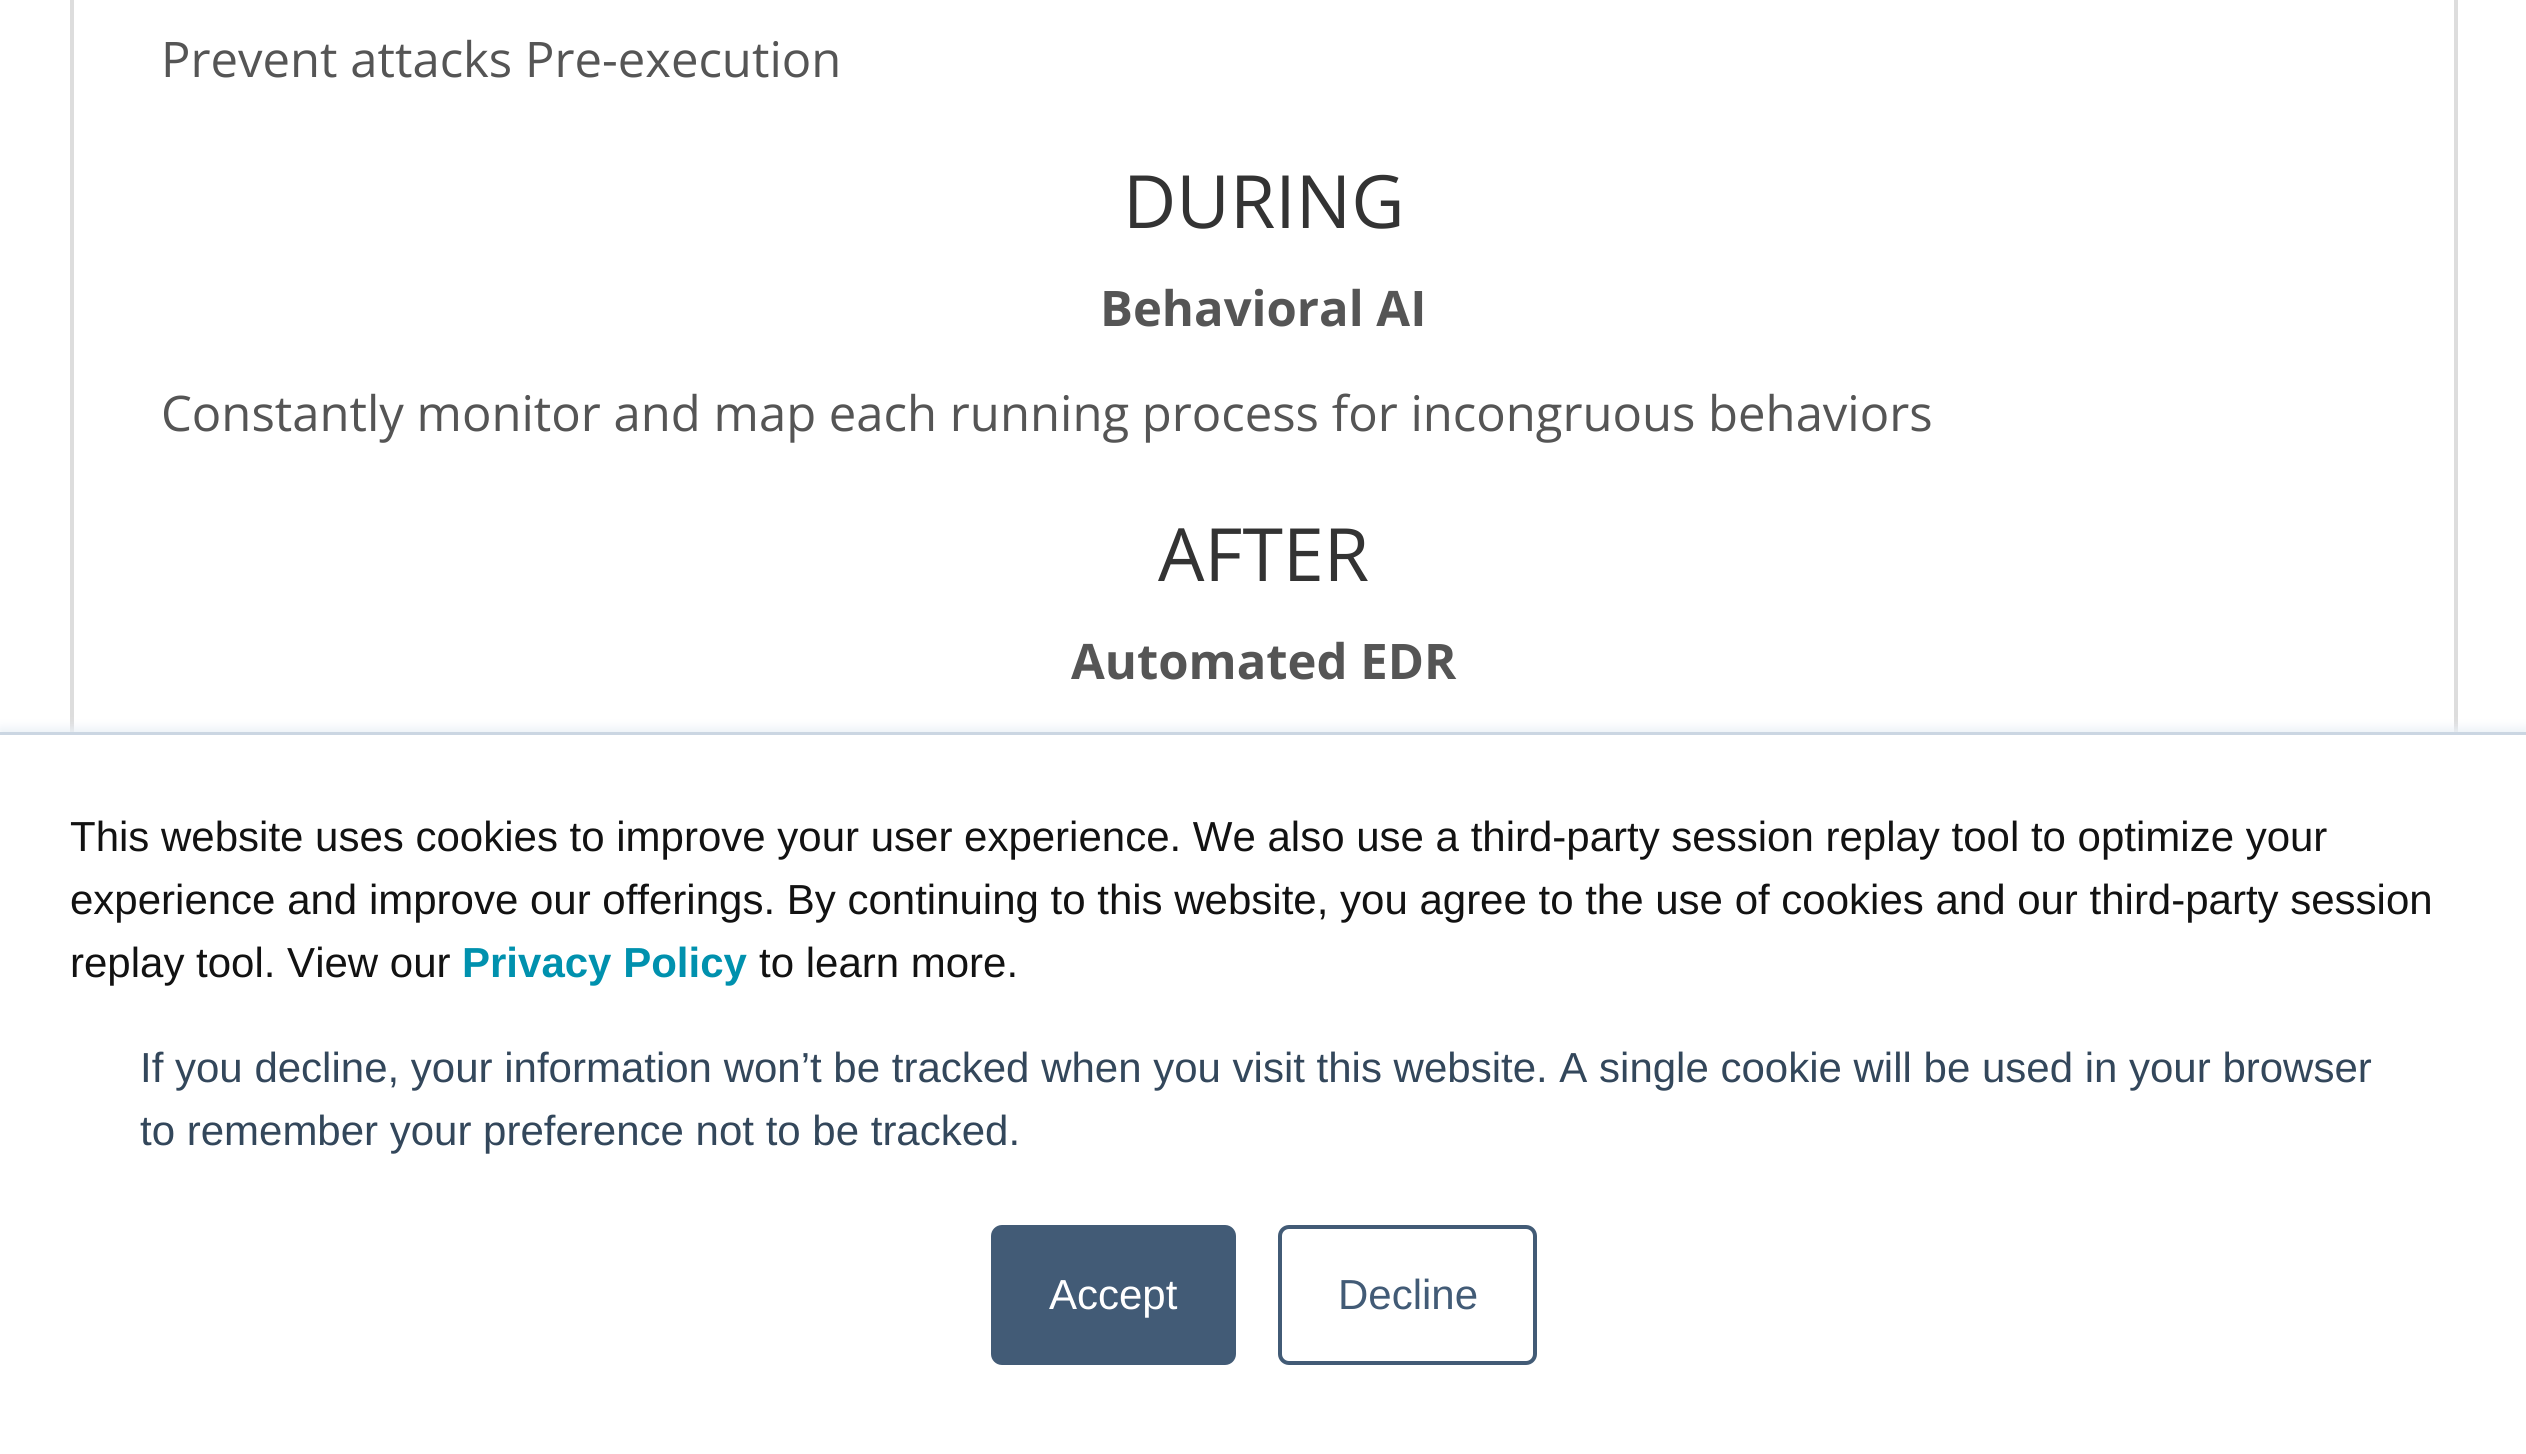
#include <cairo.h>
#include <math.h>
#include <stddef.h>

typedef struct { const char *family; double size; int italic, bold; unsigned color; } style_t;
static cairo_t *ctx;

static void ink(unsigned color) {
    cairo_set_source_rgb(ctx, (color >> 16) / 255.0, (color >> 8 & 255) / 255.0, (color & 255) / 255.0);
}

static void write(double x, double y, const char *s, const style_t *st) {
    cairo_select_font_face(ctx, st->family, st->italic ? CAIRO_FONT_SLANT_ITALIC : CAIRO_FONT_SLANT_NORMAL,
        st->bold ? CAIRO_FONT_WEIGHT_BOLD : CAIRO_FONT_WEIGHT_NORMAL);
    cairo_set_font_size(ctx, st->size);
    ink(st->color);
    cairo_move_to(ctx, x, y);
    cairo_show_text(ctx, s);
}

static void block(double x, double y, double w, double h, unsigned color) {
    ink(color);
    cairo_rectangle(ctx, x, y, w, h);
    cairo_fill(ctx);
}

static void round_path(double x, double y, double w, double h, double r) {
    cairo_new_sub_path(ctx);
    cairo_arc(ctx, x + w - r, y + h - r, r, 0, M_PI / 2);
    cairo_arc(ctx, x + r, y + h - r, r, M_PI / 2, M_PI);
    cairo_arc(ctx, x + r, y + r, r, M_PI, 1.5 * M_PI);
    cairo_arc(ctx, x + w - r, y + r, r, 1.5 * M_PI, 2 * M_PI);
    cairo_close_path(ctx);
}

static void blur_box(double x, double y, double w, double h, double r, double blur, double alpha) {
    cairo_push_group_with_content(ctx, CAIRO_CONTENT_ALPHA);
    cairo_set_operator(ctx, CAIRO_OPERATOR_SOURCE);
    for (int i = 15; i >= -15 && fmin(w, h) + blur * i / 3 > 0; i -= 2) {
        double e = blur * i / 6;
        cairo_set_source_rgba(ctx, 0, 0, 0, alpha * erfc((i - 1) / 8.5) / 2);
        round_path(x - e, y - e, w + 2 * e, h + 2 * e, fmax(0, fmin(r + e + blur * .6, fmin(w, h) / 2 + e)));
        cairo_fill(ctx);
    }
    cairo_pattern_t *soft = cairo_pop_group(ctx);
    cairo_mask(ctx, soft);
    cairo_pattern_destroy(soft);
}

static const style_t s1 = {"Open Sans", 49, 0, 0, 0x555555};
static const style_t s2 = {"Open Sans", 73.5, 0, 0, 0x333333};
static const style_t s3 = {"Open Sans", 49, 0, 1, 0x555555};
static const style_t s4 = {"Liberation Sans", 42, 0, 0, 0x121212};
static const style_t s5 = {"Liberation Sans", 42, 0, 1, 0x0091ae};
static const style_t s6 = {"Liberation Sans", 42, 0, 0, 0x33475b};
static const style_t s7 = {"Liberation Sans", 42, 0, 0, 0xffffff};
static const style_t s8 = {"Liberation Sans", 42, 0, 0, 0x425b76};

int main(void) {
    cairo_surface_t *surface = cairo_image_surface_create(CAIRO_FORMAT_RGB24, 2526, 1454);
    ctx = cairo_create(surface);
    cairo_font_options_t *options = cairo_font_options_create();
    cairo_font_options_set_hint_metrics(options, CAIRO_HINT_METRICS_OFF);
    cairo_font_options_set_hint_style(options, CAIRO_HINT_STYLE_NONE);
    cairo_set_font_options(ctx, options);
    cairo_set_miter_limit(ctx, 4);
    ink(0xffffff);
    cairo_paint(ctx);
    block(2454, 0, 4, 732, 0xdddddd);
    block(70, 0, 4, 732, 0xdddddd);
    write(161, 77, "Prevent attacks Pre-execution", &s1);
    write(1123, 228, "DURING", &s2);
    write(1100, 326, "Behavioral AI", &s3);
    write(161, 431, "Constantly monitor and map each running process for incongruous behaviors", &s1);
    write(1158, 581, "AFTER", &s2);
    write(1071, 679, "Automated EDR", &s3);
    ink(0xeaf0f6);
    blur_box(0, 728, 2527, 725, 0, 5, 1);
    block(0, 732, 2526, 3, 0xcbd6e2);
    block(0, 735, 2526, 719, 0xffffff);
    write(70, 851, "This website uses cookies to improve your user experience. We also use a third-party session replay tool to optimize your", &s4);
    write(70, 914, "experience and improve our offerings. By continuing to this website, you agree to the use of cookies and our third-party session", &s4);
    write(70, 977, "replay tool. View our", &s4);
    write(462, 977, "Privacy Policy", &s5);
    write(759, 977, "to learn more.", &s4);
    write(140, 1082, "If you decline, your information won’t be tracked when you visit this website. A single cookie will be used in your browser", &s6);
    write(140, 1145, "to remember your preference not to be tracked.", &s6);
    ink(0x425b76);
    round_path(993, 1227, 241, 136, 9);
    cairo_fill_preserve(ctx);
    cairo_set_line_width(ctx, 4);
    cairo_stroke(ctx);
    write(1049, 1309, "Accept", &s7);
    round_path(1280, 1227, 255, 136, 9);
    ink(0x425b76);
    cairo_stroke(ctx);
    write(1338, 1309, "Decline", &s8);
    cairo_surface_write_to_png(surface, "screenshot.png");
    cairo_font_options_destroy(options);
    cairo_destroy(ctx);
    cairo_surface_destroy(surface);
    return 0;
}
